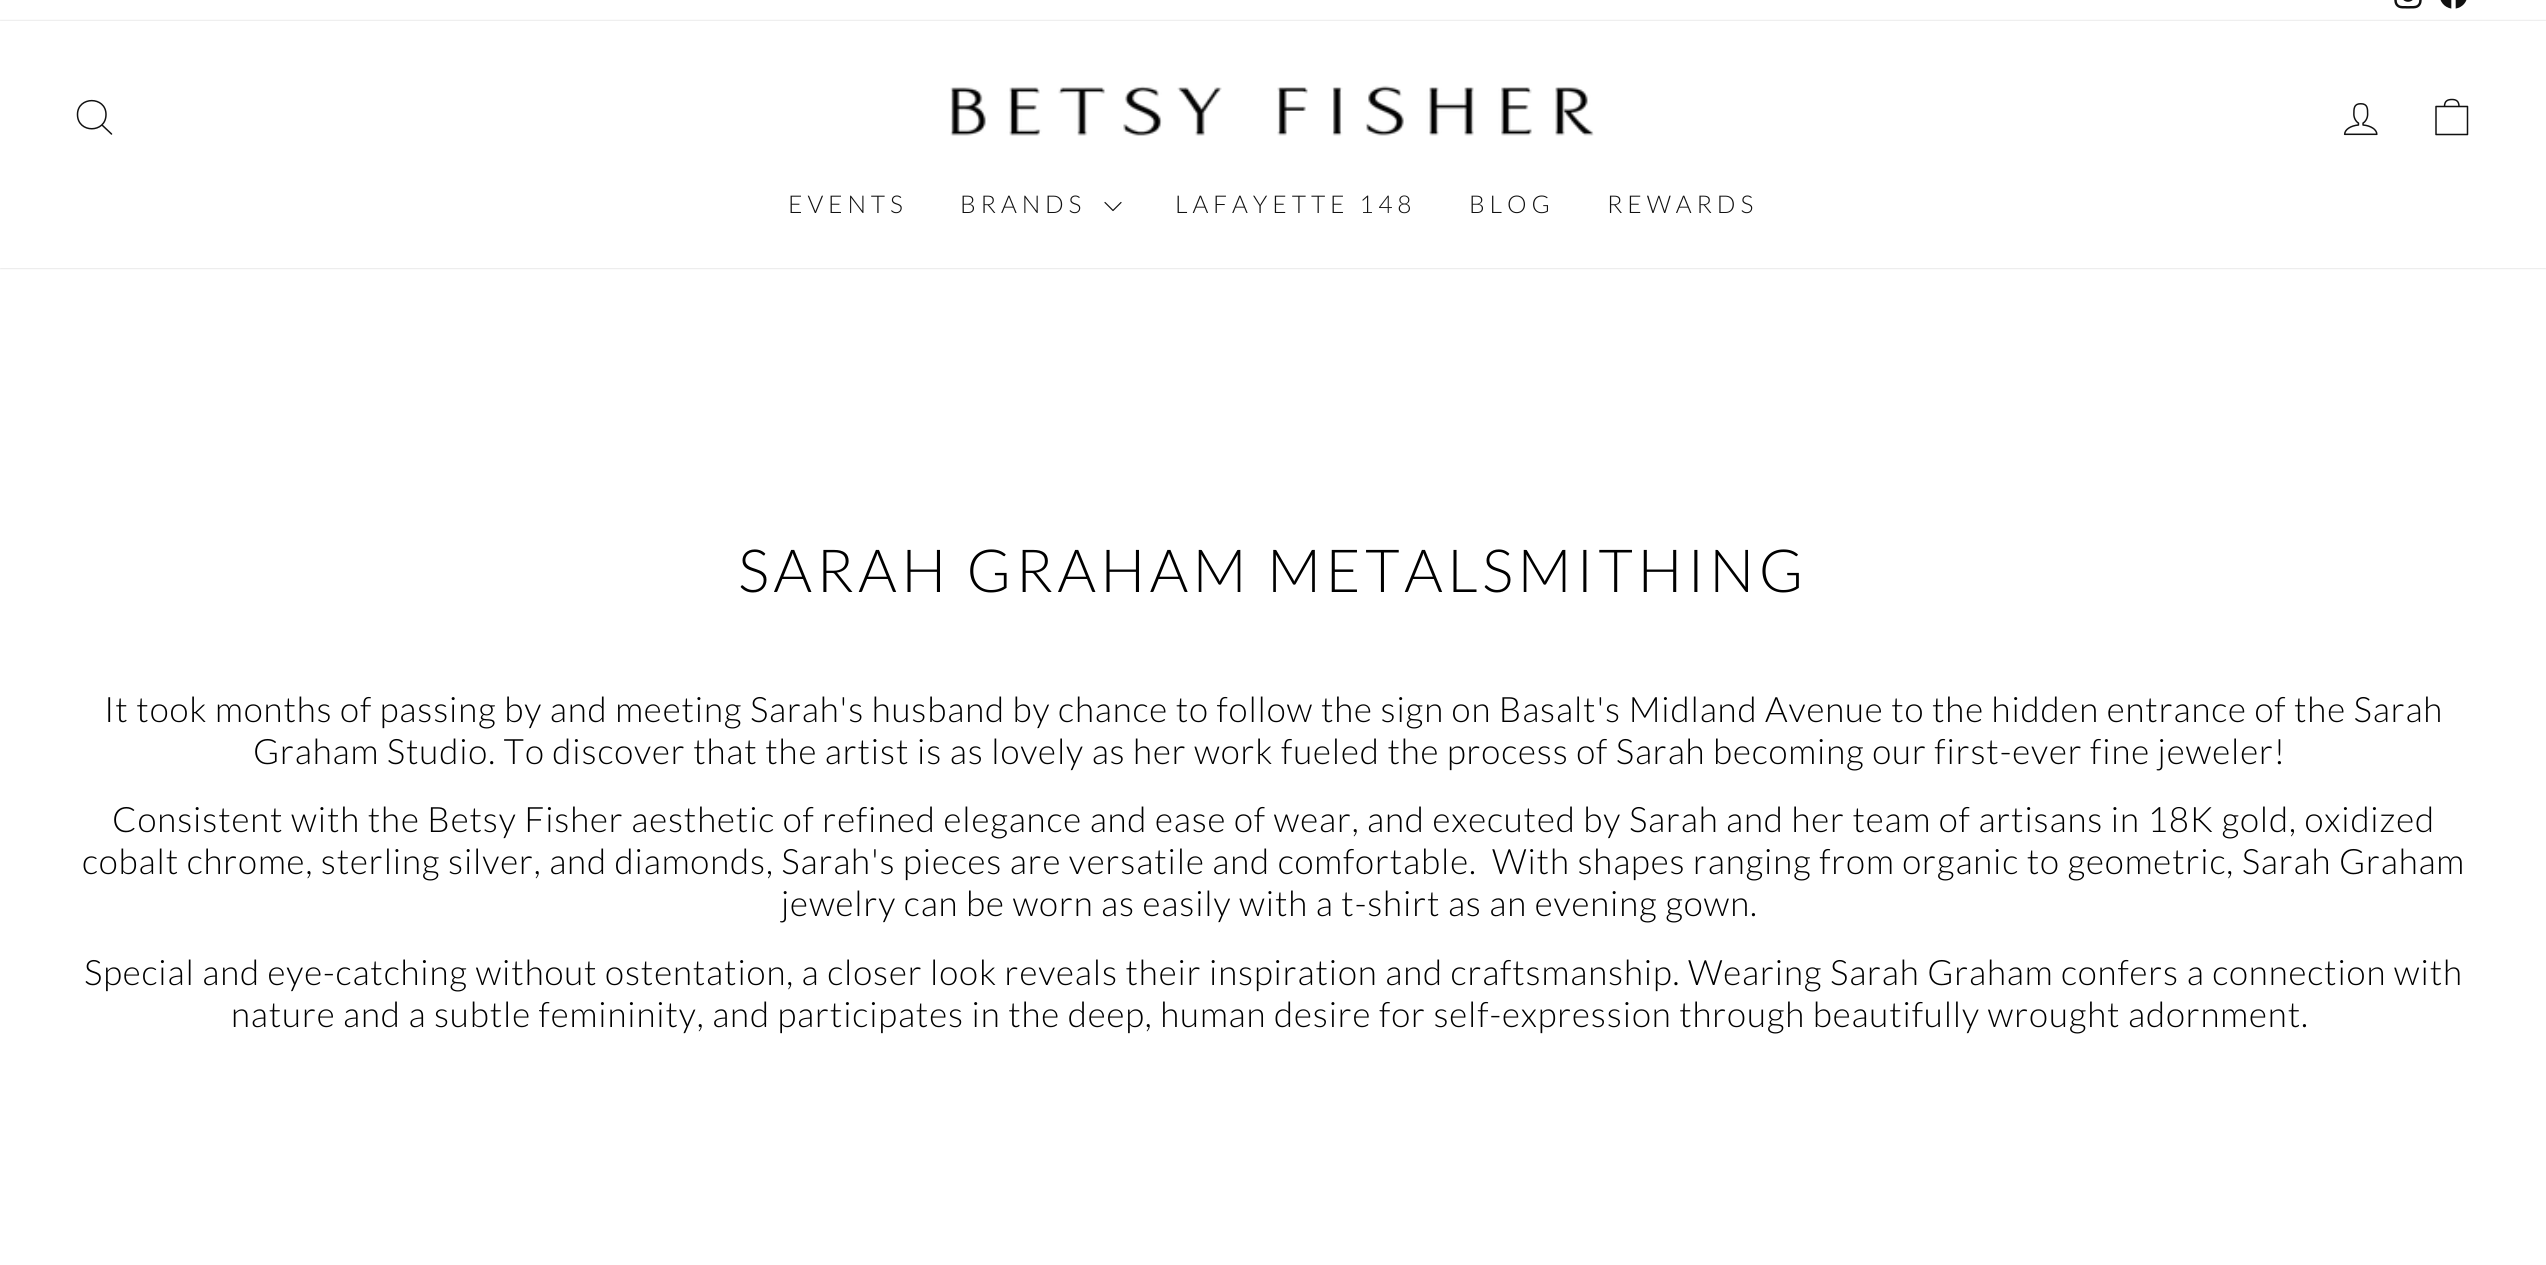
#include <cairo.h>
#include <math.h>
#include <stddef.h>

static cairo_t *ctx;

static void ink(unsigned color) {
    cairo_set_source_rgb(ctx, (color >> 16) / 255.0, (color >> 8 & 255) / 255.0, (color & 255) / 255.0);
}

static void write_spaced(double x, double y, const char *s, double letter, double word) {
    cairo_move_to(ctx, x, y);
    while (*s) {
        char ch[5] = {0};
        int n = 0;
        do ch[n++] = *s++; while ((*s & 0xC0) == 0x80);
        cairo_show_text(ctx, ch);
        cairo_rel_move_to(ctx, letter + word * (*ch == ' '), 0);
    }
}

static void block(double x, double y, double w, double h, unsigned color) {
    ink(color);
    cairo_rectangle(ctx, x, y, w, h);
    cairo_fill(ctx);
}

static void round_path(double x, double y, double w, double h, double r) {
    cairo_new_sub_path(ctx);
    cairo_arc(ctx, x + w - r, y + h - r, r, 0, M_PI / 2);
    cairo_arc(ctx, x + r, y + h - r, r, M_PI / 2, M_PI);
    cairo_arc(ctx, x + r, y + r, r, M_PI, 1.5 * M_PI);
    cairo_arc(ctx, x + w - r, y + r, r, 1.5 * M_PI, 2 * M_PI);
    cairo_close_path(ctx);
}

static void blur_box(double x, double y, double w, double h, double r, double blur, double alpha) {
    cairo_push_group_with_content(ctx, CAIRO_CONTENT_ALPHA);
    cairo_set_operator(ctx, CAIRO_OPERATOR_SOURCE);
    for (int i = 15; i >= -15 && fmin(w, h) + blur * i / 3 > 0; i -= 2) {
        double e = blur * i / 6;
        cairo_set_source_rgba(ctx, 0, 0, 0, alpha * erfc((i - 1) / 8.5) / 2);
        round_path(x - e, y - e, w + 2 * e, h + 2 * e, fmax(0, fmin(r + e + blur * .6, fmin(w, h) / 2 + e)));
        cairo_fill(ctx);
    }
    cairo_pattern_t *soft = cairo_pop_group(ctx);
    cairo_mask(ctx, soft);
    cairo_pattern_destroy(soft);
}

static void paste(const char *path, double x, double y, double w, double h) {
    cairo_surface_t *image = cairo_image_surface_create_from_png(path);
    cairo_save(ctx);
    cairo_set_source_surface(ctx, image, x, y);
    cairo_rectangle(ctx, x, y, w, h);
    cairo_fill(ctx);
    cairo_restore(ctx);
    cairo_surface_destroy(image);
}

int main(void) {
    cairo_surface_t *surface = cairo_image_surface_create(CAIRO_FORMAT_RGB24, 2546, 1265);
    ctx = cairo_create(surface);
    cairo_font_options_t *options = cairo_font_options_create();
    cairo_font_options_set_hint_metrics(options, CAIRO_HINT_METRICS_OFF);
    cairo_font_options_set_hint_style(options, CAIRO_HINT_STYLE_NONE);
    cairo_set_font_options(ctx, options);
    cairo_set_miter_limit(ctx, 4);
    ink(0xffffff);
    cairo_paint(ctx);
    paste("pic1.png", 2394, 0, 28, 9);
    paste("pic2.png", 2440, 0, 27, 9);
    ink(0x000000);
    blur_box(0, 21, 2546, 247, 0, 1, 0.2);
    block(0, 21, 2546, 247, 0xffffff);
    cairo_new_path(ctx);
    cairo_move_to(ctx, 106, 114.5);
    cairo_curve_to(ctx, 106, 133.5, 77.5, 133.5, 77.5, 114.5);
    cairo_curve_to(ctx, 77.5, 96, 106, 96, 106, 114.5);
    cairo_close_path(ctx);
    cairo_move_to(ctx, 111.5, 134);
    cairo_line_to(ctx, 102, 125);
    ink(0x111111);
    cairo_set_line_width(ctx, 1.5);
    cairo_set_line_cap(ctx, CAIRO_LINE_CAP_ROUND);
    cairo_set_line_join(ctx, CAIRO_LINE_JOIN_ROUND);
    cairo_stroke(ctx);
    paste("pic3.png", 950, 85, 644, 51);
    paste("pic4.png", 2343, 103, 35, 33);
    cairo_new_path(ctx);
    cairo_move_to(ctx, 2436, 106.5);
    cairo_line_to(ctx, 2467.5, 106.5);
    cairo_line_to(ctx, 2467.5, 134.5);
    cairo_line_to(ctx, 2436, 134.5);
    cairo_close_path(ctx);
    cairo_move_to(ctx, 2444.5, 106.5);
    cairo_curve_to(ctx, 2444.5, 101, 2447.5, 99.5, 2452, 99.5);
    cairo_curve_to(ctx, 2456, 99.5, 2459, 101, 2459, 106.5);
    cairo_stroke(ctx);
    cairo_select_font_face(ctx, "Lato Light", CAIRO_FONT_SLANT_NORMAL, CAIRO_FONT_WEIGHT_NORMAL);
    cairo_set_font_size(ctx, 24.5);
    write_spaced(788, 213, "EVENTS", 4.9, 0);
    write_spaced(960, 213, "BRANDS", 4.9, 0);
    cairo_new_path(ctx);
    cairo_move_to(ctx, 1105, 202.5);
    cairo_line_to(ctx, 1113, 210.5);
    cairo_line_to(ctx, 1121, 202.5);
    cairo_set_line_width(ctx, 1.2);
    cairo_stroke(ctx);
    write_spaced(1175, 213, "LAFAYETTE 148", 4.9, 0);
    write_spaced(1469, 213, "BLOG", 4.9, 0);
    write_spaced(1607, 213, "REWARDS", 4.9, 0);
    cairo_set_font_size(ctx, 59.5);
    ink(0x000000);
    write_spaced(738, 592, "SARAH GRAHAM METALSMITHING", 4.45, 0);
    cairo_set_font_size(ctx, 35);
    write_spaced(104, 722, "It took months of passing by and meeting Sarah's husband by chance to follow the sign on Basalt's Midland Avenue to the hidden entrance of the Sarah", 0.88, 0);
    write_spaced(253, 764, "Graham Studio. To discover that the artist is as lovely as her work fueled the process of Sarah becoming our first-ever fine jeweler!", 0.88, 0);
    write_spaced(112, 832, "Consistent with the Betsy Fisher aesthetic of refined elegance and ease of wear, and executed by Sarah and her team of artisans in 18K gold, oxidized", 0.88, 0);
    write_spaced(82, 874, "cobalt chrome, sterling silver, and diamonds, Sarah's pieces are versatile and comfortable.  With shapes ranging from organic to geometric, Sarah Graham", 0.88, 0);
    write_spaced(781, 916, "jewelry can be worn as easily with a t-shirt as an evening gown.", 0.88, 0);
    write_spaced(84, 985, "Special and eye-catching without ostentation, a closer look reveals their inspiration and craftsmanship. Wearing Sarah Graham confers a connection with", 0.88, 0);
    write_spaced(231, 1027, "nature and a subtle femininity, and participates in the deep, human desire for self-expression through beautifully wrought adornment.", 0.88, 0);
    cairo_surface_write_to_png(surface, "screenshot.png");
    cairo_font_options_destroy(options);
    cairo_destroy(ctx);
    cairo_surface_destroy(surface);
    return 0;
}
